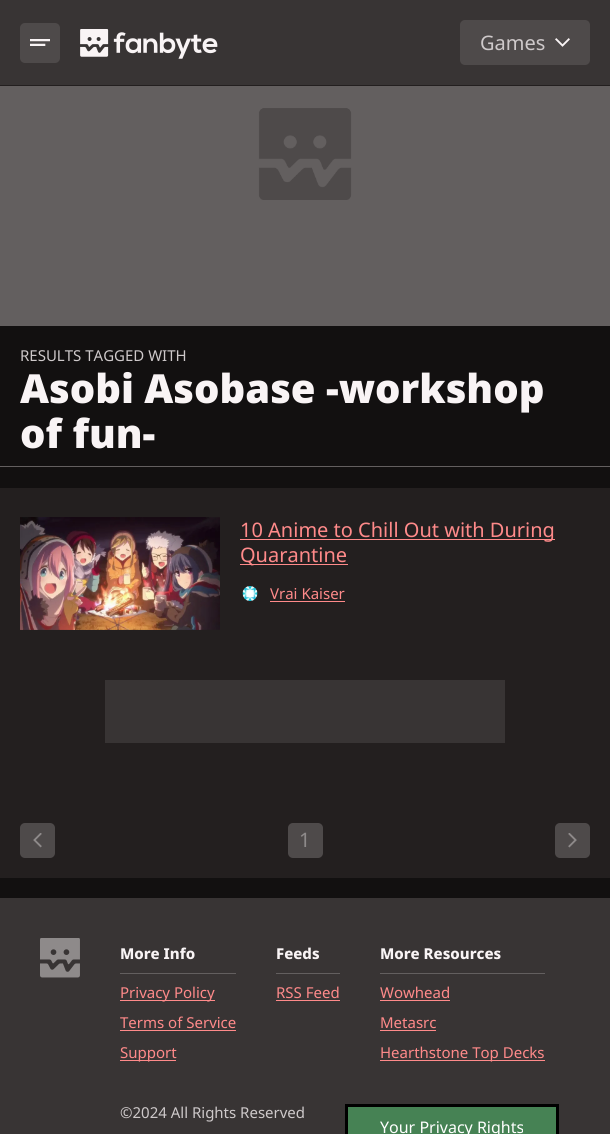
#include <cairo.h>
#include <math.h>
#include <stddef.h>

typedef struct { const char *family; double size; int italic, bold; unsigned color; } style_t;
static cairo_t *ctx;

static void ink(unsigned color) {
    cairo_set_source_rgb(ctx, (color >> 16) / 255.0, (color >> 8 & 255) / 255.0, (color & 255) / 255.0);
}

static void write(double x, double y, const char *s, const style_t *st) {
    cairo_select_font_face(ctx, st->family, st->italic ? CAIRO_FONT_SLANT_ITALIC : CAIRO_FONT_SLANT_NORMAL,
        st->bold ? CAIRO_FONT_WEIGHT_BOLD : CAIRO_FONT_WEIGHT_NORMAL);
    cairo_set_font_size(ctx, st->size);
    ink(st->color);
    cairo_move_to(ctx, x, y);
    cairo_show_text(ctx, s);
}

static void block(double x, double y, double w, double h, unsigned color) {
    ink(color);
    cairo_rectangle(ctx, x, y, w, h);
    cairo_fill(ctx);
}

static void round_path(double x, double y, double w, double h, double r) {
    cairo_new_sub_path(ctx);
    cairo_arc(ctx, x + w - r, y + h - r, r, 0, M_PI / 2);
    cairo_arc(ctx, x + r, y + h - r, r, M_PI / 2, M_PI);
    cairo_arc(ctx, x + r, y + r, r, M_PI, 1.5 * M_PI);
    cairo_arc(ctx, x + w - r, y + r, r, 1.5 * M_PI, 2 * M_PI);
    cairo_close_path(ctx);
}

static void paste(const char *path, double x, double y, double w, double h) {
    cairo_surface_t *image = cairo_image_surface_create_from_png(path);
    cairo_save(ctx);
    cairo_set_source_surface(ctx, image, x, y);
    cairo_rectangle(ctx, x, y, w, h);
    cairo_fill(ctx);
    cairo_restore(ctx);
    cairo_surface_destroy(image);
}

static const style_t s1 = {"Noto Sans", 20, 0, 0, 0xcec9ca};
static const style_t s2 = {"Noto Sans", 15, 0, 0, 0xcec9ca};
static const style_t s3 = {"Noto Sans Black", 40, 0, 0, 0xf9f4f5};
static const style_t s4 = {"Noto Sans", 20, 0, 0, 0xff8a8a};
static const style_t s5 = {"Noto Sans", 15, 0, 0, 0xff8a8a};
static const style_t s6 = {"Noto Sans", 20, 0, 0, 0x8e8a8a};
static const style_t s7 = {"Noto Sans ExtraBold", 15, 0, 0, 0xf9f4f5};
static const style_t s8 = {"Noto Sans", 16, 0, 0, 0xffffff};

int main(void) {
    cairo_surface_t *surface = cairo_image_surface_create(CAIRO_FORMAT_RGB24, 610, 1134);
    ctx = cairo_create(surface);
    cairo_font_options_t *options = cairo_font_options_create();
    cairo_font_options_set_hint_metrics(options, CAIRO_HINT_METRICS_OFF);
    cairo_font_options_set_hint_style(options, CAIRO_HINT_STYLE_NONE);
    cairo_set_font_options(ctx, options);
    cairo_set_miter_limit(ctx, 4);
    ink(0x121010);
    cairo_paint(ctx);
    block(0, 0, 610, 85, 0x383434);
    block(0, 85, 610, 1, 0x231f1f);
    ink(0x4e4a4a);
    round_path(20, 23, 40, 40, 5);
    cairo_fill(ctx);
    paste("pic1.png", 30, 39, 20, 7);
    paste("pic2.png", 80, 29, 138, 30);
    round_path(460, 20, 130, 45, 5);
    cairo_fill(ctx);
    write(480, 50, "Games", &s1);
    paste("pic3.png", 555, 38, 15, 9);
    paste("pic4.png", 0, 86, 610, 240);
    write(20, 361, "RESULTS TAGGED WITH", &s2);
    block(0, 466, 610, 1, 0x635f5f);
    write(20, 403, "Asobi Asobase -workshop", &s3);
    write(20, 448, "of fun-", &s3);
    block(0, 488, 610, 390, 0x231f1f);
    paste("pic5.png", 20, 517, 200, 113);
    paste("pic6.png", 20, 517, 186, 113);
    block(240, 539, 315, 1, 0xff8a8a);
    write(240, 537, "10 Anime to Chill Out with During", &s4);
    block(240, 564, 108, 1, 0xff8a8a);
    write(240, 562, "Quarantine", &s4);
    paste("pic7.png", 242, 586, 16, 15);
    write(270, 599, "Vrai Kaiser", &s5);
    block(270, 601, 75, 1, 0xff8a8a);
    block(105, 680, 400, 63, 0x383434);
    ink(0x4e4a4a);
    round_path(20, 823, 35, 35, 5);
    cairo_fill(ctx);
    paste("pic8.png", 33, 833, 9, 15);
    round_path(288, 823, 35, 35, 5);
    cairo_fill(ctx);
    write(299, 847, "1", &s6);
    ink(0x4e4a4a);
    round_path(555, 823, 35, 35, 5);
    cairo_fill(ctx);
    paste("pic9.png", 568, 833, 9, 15);
    block(0, 898, 610, 236, 0x383434);
    paste("pic10.png", 40, 938, 40, 40);
    block(120, 973, 116, 1, 0x635f5f);
    write(120, 959, "More Info", &s7);
    block(120, 1000, 95, 1, 0xff8a8a);
    write(120, 998, "Privacy Policy", &s5);
    write(120, 1028, "Terms of Service", &s5);
    block(120, 1030, 116, 1, 0xff8a8a);
    block(120, 1060, 56, 1, 0xff8a8a);
    write(120, 1058, "Support", &s5);
    block(276, 973, 64, 1, 0x635f5f);
    write(276, 959, "Feeds", &s7);
    write(276, 998, "RSS Feed", &s5);
    block(276, 1000, 64, 1, 0xff8a8a);
    block(380, 973, 165, 1, 0x635f5f);
    write(380, 959, "More Resources", &s7);
    write(380, 998, "Wowhead", &s5);
    block(380, 1000, 70, 1, 0xff8a8a);
    write(380, 1028, "Metasrc", &s5);
    block(380, 1030, 56, 1, 0xff8a8a);
    block(380, 1060, 165, 1, 0xff8a8a);
    write(380, 1058, "Hearthstone Top Decks", &s5);
    write(120, 1118, "©2024 All Rights Reserved", &s2);
    ink(0x468254);
    cairo_rectangle(ctx, 346.5, 1105.5, 211, 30);
    cairo_fill_preserve(ctx);
    ink(0x000000);
    cairo_set_line_width(ctx, 3);
    cairo_stroke(ctx);
    write(380, 1133, "Your Privacy Rights", &s8);
    cairo_surface_write_to_png(surface, "screenshot.png");
    cairo_font_options_destroy(options);
    cairo_destroy(ctx);
    cairo_surface_destroy(surface);
    return 0;
}
